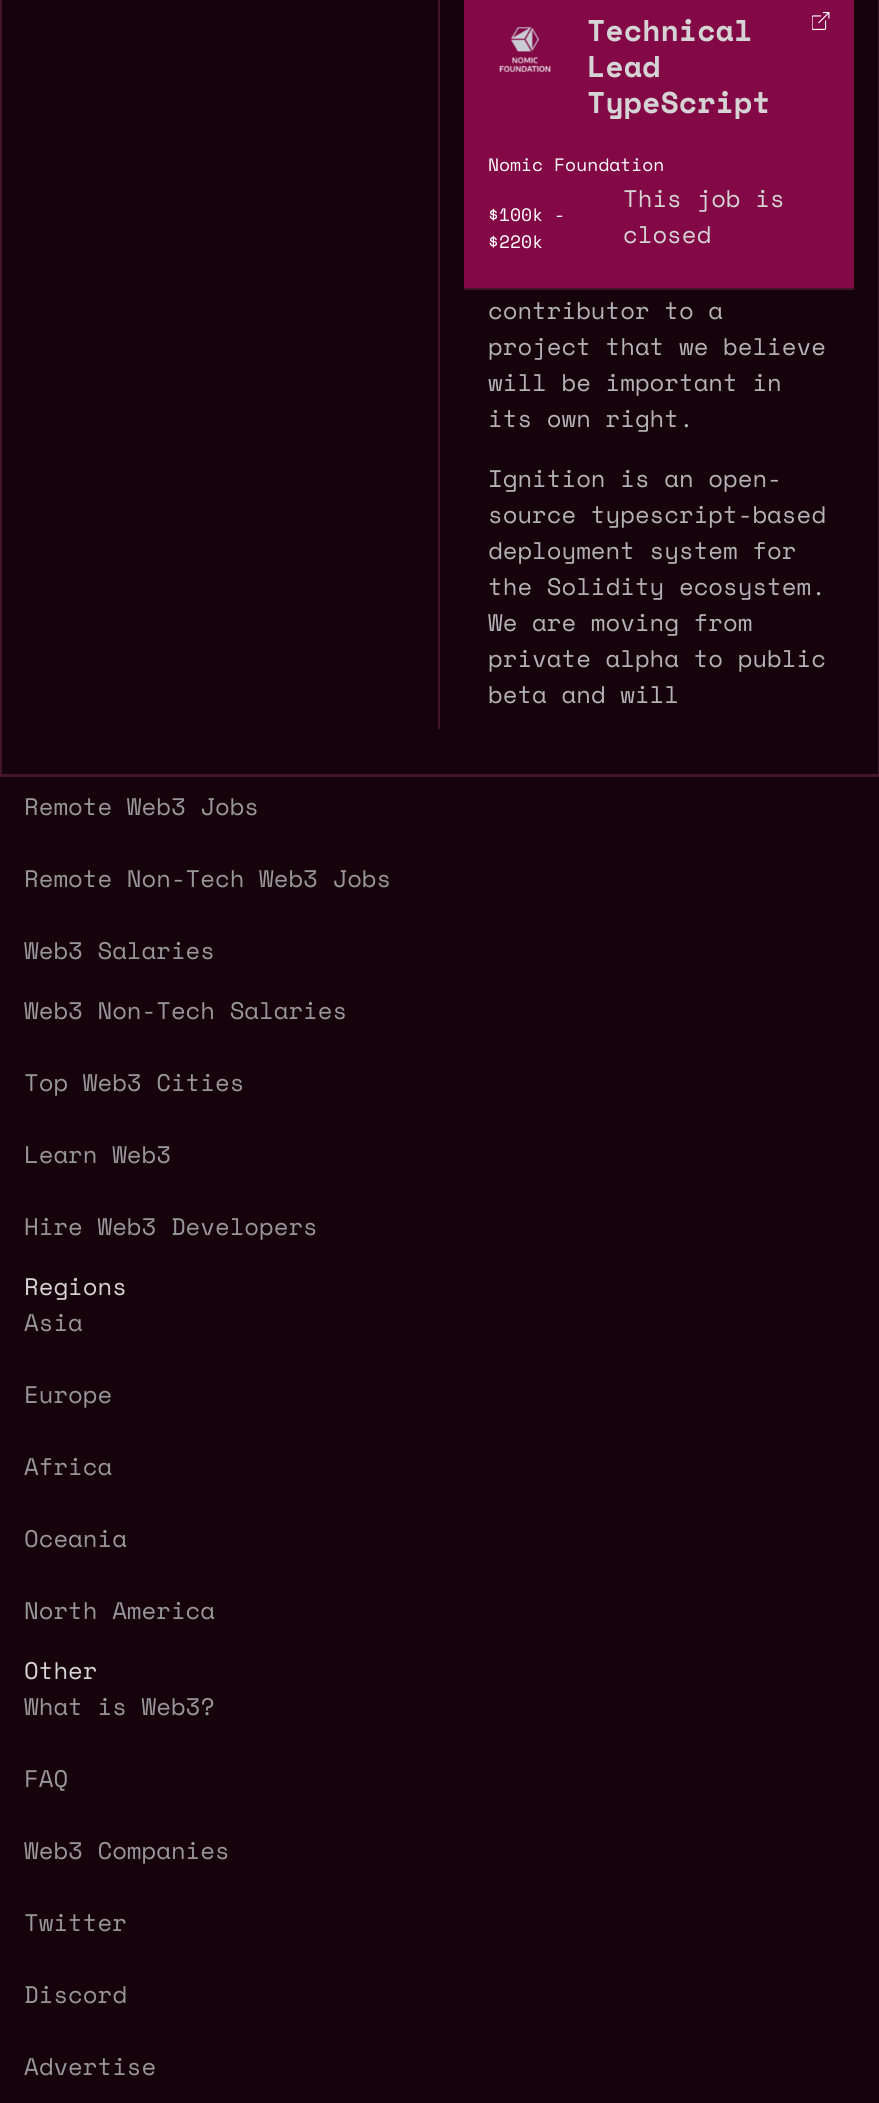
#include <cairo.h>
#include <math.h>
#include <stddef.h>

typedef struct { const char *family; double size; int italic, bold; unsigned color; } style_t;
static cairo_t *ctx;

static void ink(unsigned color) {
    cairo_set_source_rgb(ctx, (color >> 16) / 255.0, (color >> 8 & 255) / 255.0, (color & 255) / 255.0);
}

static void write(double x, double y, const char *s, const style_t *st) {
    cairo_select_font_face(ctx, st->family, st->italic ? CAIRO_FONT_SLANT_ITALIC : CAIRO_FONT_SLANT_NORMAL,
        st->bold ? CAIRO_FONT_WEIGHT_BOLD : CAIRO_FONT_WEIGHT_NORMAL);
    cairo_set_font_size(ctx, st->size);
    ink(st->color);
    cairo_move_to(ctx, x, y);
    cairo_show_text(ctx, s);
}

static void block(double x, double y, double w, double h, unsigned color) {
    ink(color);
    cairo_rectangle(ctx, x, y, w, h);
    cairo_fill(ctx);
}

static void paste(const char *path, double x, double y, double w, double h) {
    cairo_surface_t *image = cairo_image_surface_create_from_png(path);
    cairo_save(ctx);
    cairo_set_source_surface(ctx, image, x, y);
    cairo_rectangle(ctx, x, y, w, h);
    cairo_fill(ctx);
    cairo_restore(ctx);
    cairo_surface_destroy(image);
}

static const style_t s1 = {"Space Mono", 30, 0, 1, 0xd5d3d3};
static const style_t s2 = {"Space Mono", 18, 0, 0, 0xffffff};
static const style_t s3 = {"Space Mono", 24, 0, 0, 0xd5d3d3};
static const style_t s4 = {"Space Mono", 24, 0, 0, 0xb3b3b3};
static const style_t s5 = {"Space Mono", 24, 0, 0, 0x979797};

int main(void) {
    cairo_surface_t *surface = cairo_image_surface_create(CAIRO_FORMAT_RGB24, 879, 2103);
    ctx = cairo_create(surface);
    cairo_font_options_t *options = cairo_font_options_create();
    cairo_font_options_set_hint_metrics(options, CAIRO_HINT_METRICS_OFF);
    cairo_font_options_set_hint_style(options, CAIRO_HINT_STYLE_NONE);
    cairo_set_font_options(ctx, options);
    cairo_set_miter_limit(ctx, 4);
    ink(0x16020a);
    cairo_paint(ctx);
    block(878, 0, 1, 774, 0x43162a);
    block(0, 0, 2, 774, 0x43162a);
    block(438, 0, 2, 729, 0x43162a);
    block(464, 0, 390, 288, 0x830846);
    block(464, 288, 390, 2, 0x43162a);
    paste("pic1.png", 499, 27, 52, 46);
    write(587, 41, "Technical", &s1);
    write(587, 77, "Lead", &s1);
    write(587, 113, "TypeScript", &s1);
    paste("pic2.png", 812, 12, 18, 18);
    write(488, 171, "Nomic Foundation", &s2);
    write(488, 221, "$100k -", &s2);
    write(488, 248, "$220k", &s2);
    write(623, 207, "This job is", &s3);
    write(623, 243, "closed", &s3);
    write(488, 319, "contributor to a", &s4);
    write(488, 355, "project that we believe", &s4);
    write(488, 391, "will be important in", &s4);
    write(488, 427, "its own right.", &s4);
    write(488, 487, "Ignition is an open-", &s4);
    write(488, 523, "source typescript-based", &s4);
    write(488, 559, "deployment system for", &s4);
    write(488, 595, "the Solidity ecosystem.", &s4);
    write(488, 631, "We are moving from", &s4);
    write(488, 667, "private alpha to public", &s4);
    write(488, 703, "beta and will", &s4);
    block(0, 774, 879, 3, 0x43162a);
    write(24, 815, "Remote Web3 Jobs", &s5);
    write(24, 887, "Remote Non-Tech Web3 Jobs", &s5);
    write(24, 959, "Web3 Salaries", &s5);
    write(24, 1019, "Web3 Non-Tech Salaries", &s5);
    write(24, 1091, "Top Web3 Cities", &s5);
    write(24, 1163, "Learn Web3", &s5);
    write(24, 1235, "Hire Web3 Developers", &s5);
    write(24, 1295, "Regions", &s3);
    write(24, 1331, "Asia", &s5);
    write(24, 1403, "Europe", &s5);
    write(24, 1475, "Africa", &s5);
    write(24, 1547, "Oceania", &s5);
    write(24, 1619, "North America", &s5);
    write(24, 1679, "Other", &s3);
    write(24, 1715, "What is Web3?", &s5);
    write(24, 1787, "FAQ", &s5);
    write(24, 1859, "Web3 Companies", &s5);
    write(24, 1931, "Twitter", &s5);
    write(24, 2003, "Discord", &s5);
    write(24, 2075, "Advertise", &s5);
    cairo_surface_write_to_png(surface, "screenshot.png");
    cairo_font_options_destroy(options);
    cairo_destroy(ctx);
    cairo_surface_destroy(surface);
    return 0;
}
